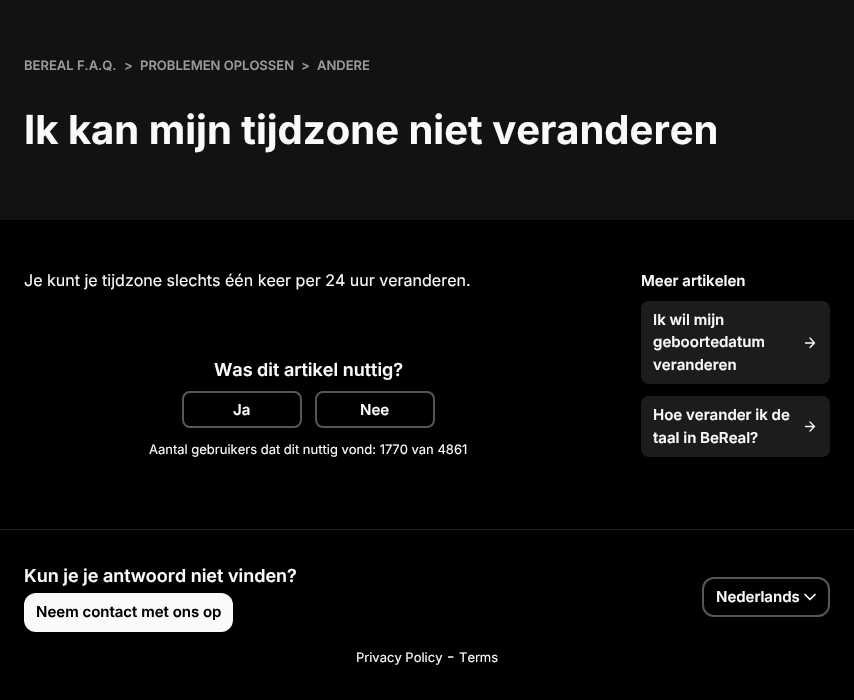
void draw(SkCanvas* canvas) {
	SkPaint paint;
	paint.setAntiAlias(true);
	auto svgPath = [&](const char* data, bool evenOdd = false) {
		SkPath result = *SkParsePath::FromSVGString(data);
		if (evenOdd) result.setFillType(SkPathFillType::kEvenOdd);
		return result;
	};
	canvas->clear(0xff000000);
	paint.setColor(0xff121214);
	canvas->drawRect(SkRect::MakeXYWH(0, 0, 854, 220), paint);
	SkFont f1(fontMgr->matchFamilyStyle("Inter", SkFontStyle(600, SkFontStyle::kNormal_Width, SkFontStyle::kUpright_Slant)), 13);
	f1.setSubpixel(true);
	paint.setColor(0xff99999c);
	canvas->drawString("BEREAL F.A.Q.", 24, 70, f1, paint);
	canvas->drawString(">", 124, 70, f1, paint);
	canvas->drawString("PROBLEMEN OPLOSSEN", 140, 70, f1, paint);
	canvas->drawString(">", 301, 70, f1, paint);
	canvas->drawString("ANDERE", 317, 70, f1, paint);
	SkFont f2(fontMgr->matchFamilyStyle("Inter", SkFontStyle::Bold()), 40);
	f2.setSubpixel(true);
	paint.setColor(0xfffafafa);
	canvas->drawString("Ik kan mijn tijdzone niet veranderen", 24, 144, f2, paint);
	SkFont f3(fontMgr->matchFamilyStyle("Inter", SkFontStyle::Normal()), 16);
	f3.setSubpixel(true);
	canvas->drawString("Je kunt je tijdzone slechts één keer per 24 uur veranderen.", 24, 286, f3, paint);
	SkFont f4(fontMgr->matchFamilyStyle("Inter", SkFontStyle(600, SkFontStyle::kNormal_Width, SkFontStyle::kUpright_Slant)), 18);
	f4.setSubpixel(true);
	canvas->drawString("Was dit artikel nuttig?", 214, 376, f4, paint);
	paint.setStroke(true);
	paint.setStrokeWidth(2);
	paint.setColor(0xff565658);
	canvas->drawRoundRect(SkRect::MakeXYWH(183, 392, 118, 35), 7, 7, paint);
	SkFont f5(fontMgr->matchFamilyStyle("Inter", SkFontStyle(600, SkFontStyle::kNormal_Width, SkFontStyle::kUpright_Slant)), 15);
	f5.setSubpixel(true);
	paint.setStroke(false);
	paint.setColor(0xfffafafa);
	canvas->drawString("Ja", 233, 415, f5, paint);
	paint.setStroke(true);
	paint.setColor(0xff565658);
	canvas->drawRoundRect(SkRect::MakeXYWH(316, 392, 118, 35), 7, 7, paint);
	paint.setStroke(false);
	paint.setColor(0xfffafafa);
	canvas->drawString("Nee", 360, 415, f5, paint);
	SkFont f6(fontMgr->matchFamilyStyle("Inter", SkFontStyle::Normal()), 13);
	f6.setSubpixel(true);
	canvas->drawString("Aantal gebruikers dat dit nuttig vond: 1770 van 4861", 149, 454, f6, paint);
	canvas->drawString("Meer artikelen", 641, 286, f5, paint);
	paint.setColor(0xff1c1c1e);
	canvas->drawRoundRect(SkRect::MakeXYWH(641, 301, 189, 83), 8, 8, paint);
	paint.setColor(0xfffafafa);
	canvas->drawString("Ik wil mijn", 653, 325, f5, paint);
	canvas->drawString("geboortedatum", 653, 347, f5, paint);
	canvas->drawString("veranderen", 653, 370, f5, paint);
	paint.setStroke(true);
	paint.setStrokeWidth(1.3);
	paint.setStrokeCap(SkPaint::kRound_Cap);
	paint.setStrokeJoin(SkPaint::kRound_Join);
	canvas->drawPath(svgPath("M805.5 343H814M810 338L814.5 343L810 347.5"), paint);
	paint.setStroke(false);
	paint.setColor(0xff1c1c1e);
	canvas->drawRoundRect(SkRect::MakeXYWH(641, 396, 189, 61), 8, 8, paint);
	paint.setColor(0xfffafafa);
	canvas->drawString("Hoe verander ik de", 653, 420, f5, paint);
	canvas->drawString("taal in BeReal?", 653, 443, f5, paint);
	paint.setStroke(true);
	canvas->drawPath(svgPath("M805.5 426.5H814M810 422L814.5 426.5L810 431"), paint);
	paint.setStroke(false);
	paint.setColor(0xff222224);
	canvas->drawRect(SkRect::MakeXYWH(0, 529, 854, 1), paint);
	paint.setColor(0xfffafafa);
	canvas->drawString("Kun je je antwoord niet vinden?", 24, 582, f4, paint);
	canvas->drawRoundRect(SkRect::MakeXYWH(24, 593, 209, 39), 12, 12, paint);
	paint.setColor(0xff000000);
	canvas->drawString("Neem contact met ons op", 36, 617, f5, paint);
	paint.setStroke(true);
	paint.setStrokeWidth(2);
	paint.setStrokeCap(SkPaint::kButt_Cap);
	paint.setStrokeJoin(SkPaint::kMiter_Join);
	paint.setColor(0xff565658);
	canvas->drawRoundRect(SkRect::MakeXYWH(703, 578, 126, 38), 11, 11, paint);
	paint.setStroke(false);
	paint.setColor(0xfffafafa);
	canvas->drawString("Nederlands", 716, 602, f5, paint);
	paint.setStroke(true);
	paint.setStrokeWidth(1.7);
	paint.setStrokeCap(SkPaint::kRound_Cap);
	paint.setStrokeJoin(SkPaint::kRound_Join);
	canvas->drawPath(svgPath("M805 594.5L810 599.5L815 594.5"), paint);
	paint.setStroke(false);
	canvas->drawString("Privacy Policy", 356, 662, f6, paint);
	canvas->drawString("-", 447, 662, f3, paint);
	canvas->drawString("Terms", 459, 662, f6, paint);
}
